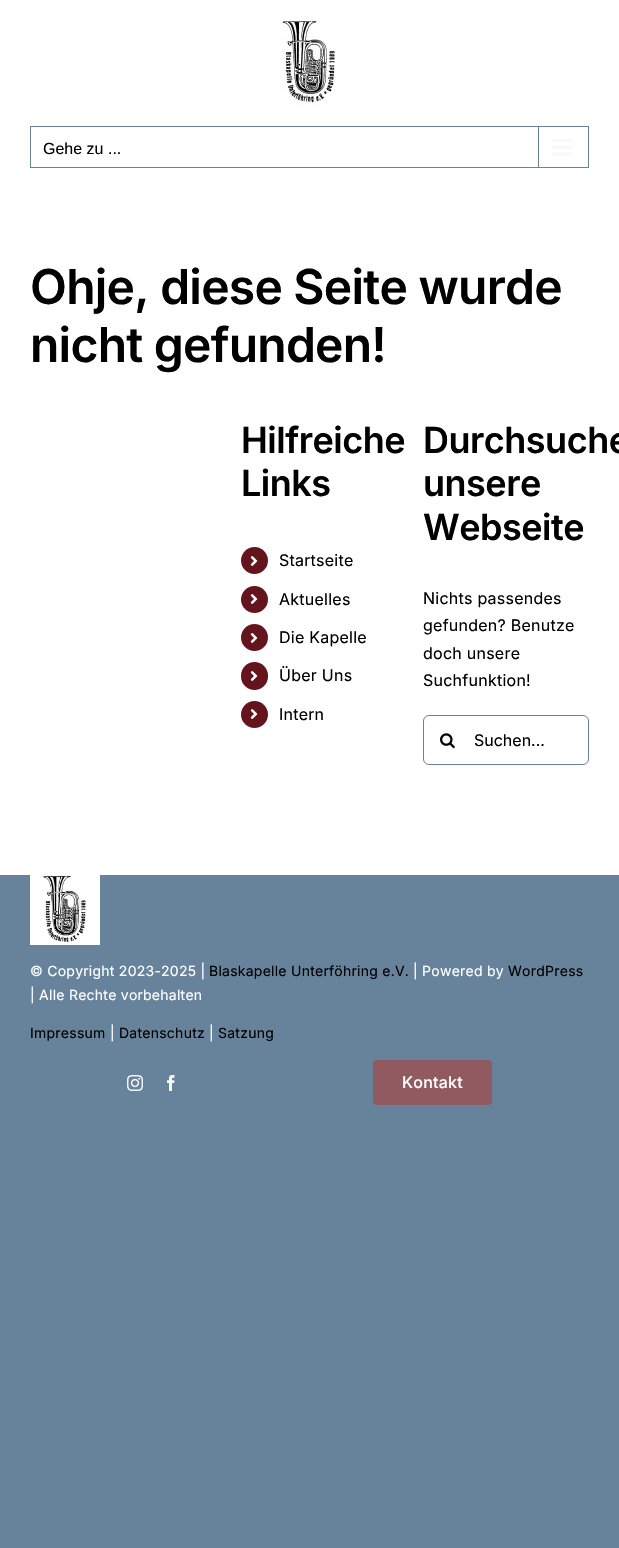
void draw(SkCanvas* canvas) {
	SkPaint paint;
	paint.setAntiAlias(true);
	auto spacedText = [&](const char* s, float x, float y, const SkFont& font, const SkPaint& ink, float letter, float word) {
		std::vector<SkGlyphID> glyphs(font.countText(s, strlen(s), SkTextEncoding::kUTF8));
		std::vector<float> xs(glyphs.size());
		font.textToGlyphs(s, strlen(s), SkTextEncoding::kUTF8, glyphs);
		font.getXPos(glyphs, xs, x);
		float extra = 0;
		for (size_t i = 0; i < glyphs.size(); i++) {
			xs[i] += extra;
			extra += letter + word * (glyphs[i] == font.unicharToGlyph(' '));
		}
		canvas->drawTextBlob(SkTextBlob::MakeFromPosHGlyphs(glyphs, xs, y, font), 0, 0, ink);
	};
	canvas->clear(0xff67829b);
	paint.setColor(0xffffffff);
	canvas->drawRect(SkRect::MakeXYWH(0, 0, 619, 875), paint);
	canvas->drawImageRect(SkImages::DeferredFromEncodedData(SkData::MakeFromFileName("img1.png")), SkRect::MakeXYWH(281, 20, 56, 86), SkSamplingOptions());
	paint.setStroke(true);
	paint.setStrokeWidth(1);
	paint.setColor(0xff67829b);
	canvas->drawRect(SkRect::MakeXYWH(30.5, 126.5, 558, 41), paint);
	SkFont f1(fontMgr->matchFamilyStyle("Liberation Sans", SkFontStyle::Normal()), 16);
	f1.setSubpixel(true);
	paint.setStroke(false);
	paint.setColor(0xff000000);
	canvas->drawString("Gehe zu ...", 43, 154, f1, paint);
	paint.setColor(0xff67829b);
	canvas->drawRect(SkRect::MakeXYWH(538, 127, 1, 40), paint);
	canvas->drawImageRect(SkImages::DeferredFromEncodedData(SkData::MakeFromFileName("img2.png")), SkRect::MakeXYWH(552, 139, 20, 17), SkSamplingOptions());
	SkFont f2(fontMgr->matchFamilyStyle("Inter", SkFontStyle(600, SkFontStyle::kNormal_Width, SkFontStyle::kUpright_Slant)), 48);
	f2.setSubpixel(true);
	paint.setColor(0xff000000);
	spacedText("Ohje, diese Seite wurde", 30, 304, f2, paint, -0.75, 0);
	spacedText("nicht gefunden!", 30, 362, f2, paint, -0.75, 0);
	SkFont f3(fontMgr->matchFamilyStyle("Inter", SkFontStyle(600, SkFontStyle::kNormal_Width, SkFontStyle::kUpright_Slant)), 36);
	f3.setSubpixel(true);
	spacedText("Hilfreiche", 241, 453, f3, paint, -0.5, 0);
	spacedText("Links", 241, 496, f3, paint, -0.5, 0);
	paint.setColor(0xff63141d);
	canvas->drawCircle(254.5, 560.5, 13.5, paint);
	canvas->drawImageRect(SkImages::DeferredFromEncodedData(SkData::MakeFromFileName("img3.png")), SkRect::MakeXYWH(250, 556, 8, 10), SkSamplingOptions());
	SkFont f4(fontMgr->matchFamilyStyle("Inter", SkFontStyle::Normal()), 16);
	f4.setSubpixel(true);
	paint.setColor(0xff000000);
	spacedText("Startseite", 279, 566, f4, paint, 0.25, 0);
	paint.setColor(0xff63141d);
	canvas->drawCircle(254.5, 599.5, 13.5, paint);
	canvas->drawImageRect(SkImages::DeferredFromEncodedData(SkData::MakeFromFileName("img3.png")), SkRect::MakeXYWH(250, 594, 8, 10), SkSamplingOptions());
	paint.setColor(0xff000000);
	spacedText("Aktuelles", 279, 605, f4, paint, 0.25, 0);
	paint.setColor(0xff63141d);
	canvas->drawCircle(254.5, 637.5, 13.5, paint);
	canvas->drawImageRect(SkImages::DeferredFromEncodedData(SkData::MakeFromFileName("img3.png")), SkRect::MakeXYWH(250, 633, 8, 10), SkSamplingOptions());
	paint.setColor(0xff000000);
	spacedText("Die Kapelle", 279, 643, f4, paint, 0.25, 0);
	paint.setColor(0xff63141d);
	canvas->drawRoundRect(SkRect::MakeXYWH(241, 662, 27, 28), 13.5, 13.5, paint);
	canvas->drawImageRect(SkImages::DeferredFromEncodedData(SkData::MakeFromFileName("img3.png")), SkRect::MakeXYWH(250, 671, 8, 10), SkSamplingOptions());
	paint.setColor(0xff000000);
	spacedText("Über Uns", 279, 681, f4, paint, 0.25, 0);
	paint.setColor(0xff63141d);
	canvas->drawCircle(254.5, 714.5, 13.5, paint);
	canvas->drawImageRect(SkImages::DeferredFromEncodedData(SkData::MakeFromFileName("img3.png")), SkRect::MakeXYWH(250, 709, 8, 10), SkSamplingOptions());
	paint.setColor(0xff000000);
	spacedText("Intern", 279, 720, f4, paint, 0.25, 0);
	spacedText("Durchsuche", 423, 453, f3, paint, -0.5, 0);
	spacedText("unsere", 423, 496, f3, paint, -0.5, 0);
	spacedText("Webseite", 423, 540, f3, paint, -0.5, 0);
	spacedText("Nichts passendes", 423, 604, f4, paint, 0.25, 0);
	spacedText("gefunden? Benutze", 423, 631, f4, paint, 0.25, 0);
	spacedText("doch unsere", 423, 659, f4, paint, 0.25, 0);
	spacedText("Suchfunktion!", 423, 686, f4, paint, 0.25, 0);
	paint.setStroke(true);
	paint.setColor(0xff67829b);
	canvas->drawRoundRect(SkRect::MakeXYWH(423.5, 715.5, 165, 49), 5.5, 5.5, paint);
	canvas->drawImageRect(SkImages::DeferredFromEncodedData(SkData::MakeFromFileName("img4.png")), SkRect::MakeXYWH(440, 733, 15, 16), SkSamplingOptions());
	paint.setStroke(false);
	paint.setColor(0xff000000);
	canvas->drawString("Suchen...", 474, 746, f4, paint);
	canvas->drawImageRect(SkImages::DeferredFromEncodedData(SkData::MakeFromFileName("img5.png")), SkRect::MakeXYWH(30, 875, 70, 70), SkSamplingOptions());
	SkFont f5(fontMgr->matchFamilyStyle("Inter", SkFontStyle::Normal()), 14);
	f5.setSubpixel(true);
	paint.setColor(0xffffffff);
	spacedText("© Copyright 2023-2025 |", 30, 976, f5, paint, 0.25, 0);
	paint.setColor(0xff000000);
	spacedText("Blaskapelle Unterföhring e.V.", 209, 976, f5, paint, 0.25, 0);
	paint.setColor(0xffffffff);
	spacedText("| Powered by", 413, 976, f5, paint, 0.25, 0);
	paint.setColor(0xff000000);
	spacedText("WordPress", 508, 976, f5, paint, 0.25, 0);
	paint.setColor(0xffffffff);
	spacedText("| Alle Rechte vorbehalten", 30, 1000, f5, paint, 0.25, 0);
	paint.setColor(0xff000000);
	spacedText("Impressum", 30, 1038, f5, paint, 0.25, 0);
	paint.setColor(0xffffffff);
	spacedText("|", 110, 1038, f5, paint, 0.25, 0);
	paint.setColor(0xff000000);
	spacedText("Datenschutz", 119, 1038, f5, paint, 0.25, 0);
	paint.setColor(0xffffffff);
	spacedText("|", 209, 1038, f5, paint, 0.25, 0);
	paint.setColor(0xff000000);
	spacedText("Satzung", 218, 1038, f5, paint, 0.25, 0);
	canvas->drawImageRect(SkImages::DeferredFromEncodedData(SkData::MakeFromFileName("img6.png")), SkRect::MakeXYWH(127, 1075, 16, 16), SkSamplingOptions());
	canvas->drawImageRect(SkImages::DeferredFromEncodedData(SkData::MakeFromFileName("img7.png")), SkRect::MakeXYWH(167, 1075, 8, 16), SkSamplingOptions());
	paint.setColor(0xff915a60);
	canvas->drawRoundRect(SkRect::MakeXYWH(373, 1060, 119, 45), 4, 4, paint);
	SkFont f6(fontMgr->matchFamilyStyle("Inter", SkFontStyle(500, SkFontStyle::kNormal_Width, SkFontStyle::kUpright_Slant)), 16);
	f6.setSubpixel(true);
	paint.setColor(0xffffffff);
	spacedText("Kontakt", 402, 1088, f6, paint, 0.25, 0);
}
